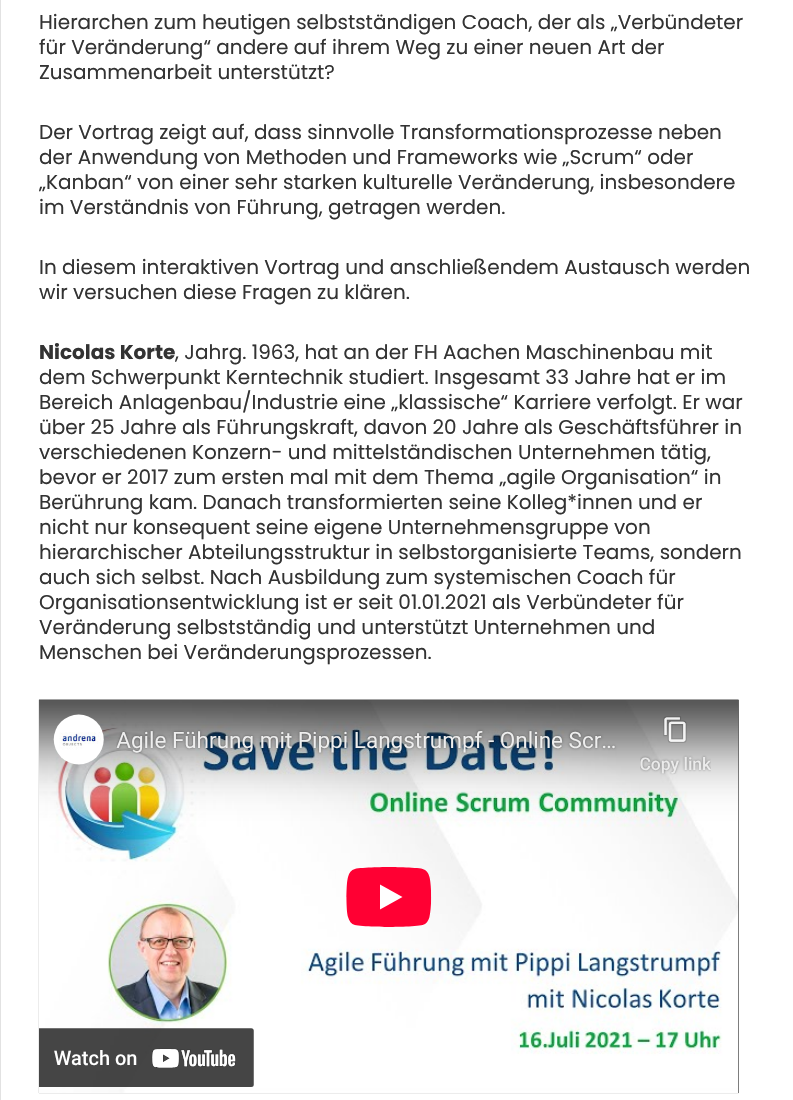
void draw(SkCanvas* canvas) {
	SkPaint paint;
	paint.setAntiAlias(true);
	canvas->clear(0xffffffff);
	paint.setColor(0xffe2e2e2);
	canvas->drawRect(SkRect::MakeXYWH(0, 0, 1, 1100), paint);
	SkFont f1(fontMgr->matchFamilyStyle("Poppins", SkFontStyle::Normal()), 20);
	f1.setSubpixel(true);
	paint.setColor(0xff333333);
	canvas->drawString("Hierarchen zum heutigen selbstständigen Coach, der als „Verbündeter", 39, 29, f1, paint);
	canvas->drawString("für Veränderung“ andere auf ihrem Weg zu einer neuen Art der", 39, 54, f1, paint);
	canvas->drawString("Zusammenarbeit unterstützt?", 39, 79, f1, paint);
	canvas->drawString("Der Vortrag zeigt auf, dass sinnvolle Transformationsprozesse neben", 39, 139, f1, paint);
	canvas->drawString("der Anwendung von Methoden und Frameworks wie „Scrum“ oder", 39, 164, f1, paint);
	canvas->drawString("„Kanban“ von einer sehr starken kulturelle Veränderung, insbesondere", 39, 189, f1, paint);
	canvas->drawString("im Verständnis von Führung, getragen werden.", 39, 214, f1, paint);
	canvas->drawString("In diesem interaktiven Vortrag und anschließendem Austausch werden", 39, 274, f1, paint);
	canvas->drawString("wir versuchen diese Fragen zu klären.", 39, 299, f1, paint);
	SkFont f2(fontMgr->matchFamilyStyle("Poppins", SkFontStyle::Bold()), 20);
	f2.setSubpixel(true);
	canvas->drawString("Nicolas Korte", 39, 359, f2, paint);
	canvas->drawString(", Jahrg. 1963, hat an der FH Aachen Maschinenbau mit", 175, 359, f1, paint);
	canvas->drawString("dem Schwerpunkt Kerntechnik studiert. Insgesamt 33 Jahre hat er im", 39, 384, f1, paint);
	canvas->drawString("Bereich Anlagenbau/Industrie eine „klassische“ Karriere verfolgt. Er war", 39, 409, f1, paint);
	canvas->drawString("über 25 Jahre als Führungskraft, davon 20 Jahre als Geschäftsführer in", 39, 434, f1, paint);
	canvas->drawString("verschiedenen Konzern- und mittelständischen Unternehmen tätig,", 39, 459, f1, paint);
	canvas->drawString("bevor er 2017 zum ersten mal mit dem Thema „agile Organisation“ in", 39, 484, f1, paint);
	canvas->drawString("Berührung kam. Danach transformierten seine Kolleg*innen und er", 39, 509, f1, paint);
	canvas->drawString("nicht nur konsequent seine eigene Unternehmensgruppe von", 39, 534, f1, paint);
	canvas->drawString("hierarchischer Abteilungsstruktur in selbstorganisierte Teams, sondern", 39, 559, f1, paint);
	canvas->drawString("auch sich selbst. Nach Ausbildung zum systemischen Coach für", 39, 584, f1, paint);
	canvas->drawString("Organisationsentwicklung ist er seit 01.01.2021 als Verbündeter für", 39, 609, f1, paint);
	canvas->drawString("Veränderung selbstständig und unterstützt Unternehmen und", 39, 634, f1, paint);
	canvas->drawString("Menschen bei Veränderungsprozessen.", 39, 659, f1, paint);
	canvas->drawImageRect(SkImages::DeferredFromEncodedData(SkData::MakeFromFileName("img1.png")), SkRect::MakeXYWH(38, 699, 701, 395), SkSamplingOptions());
}
